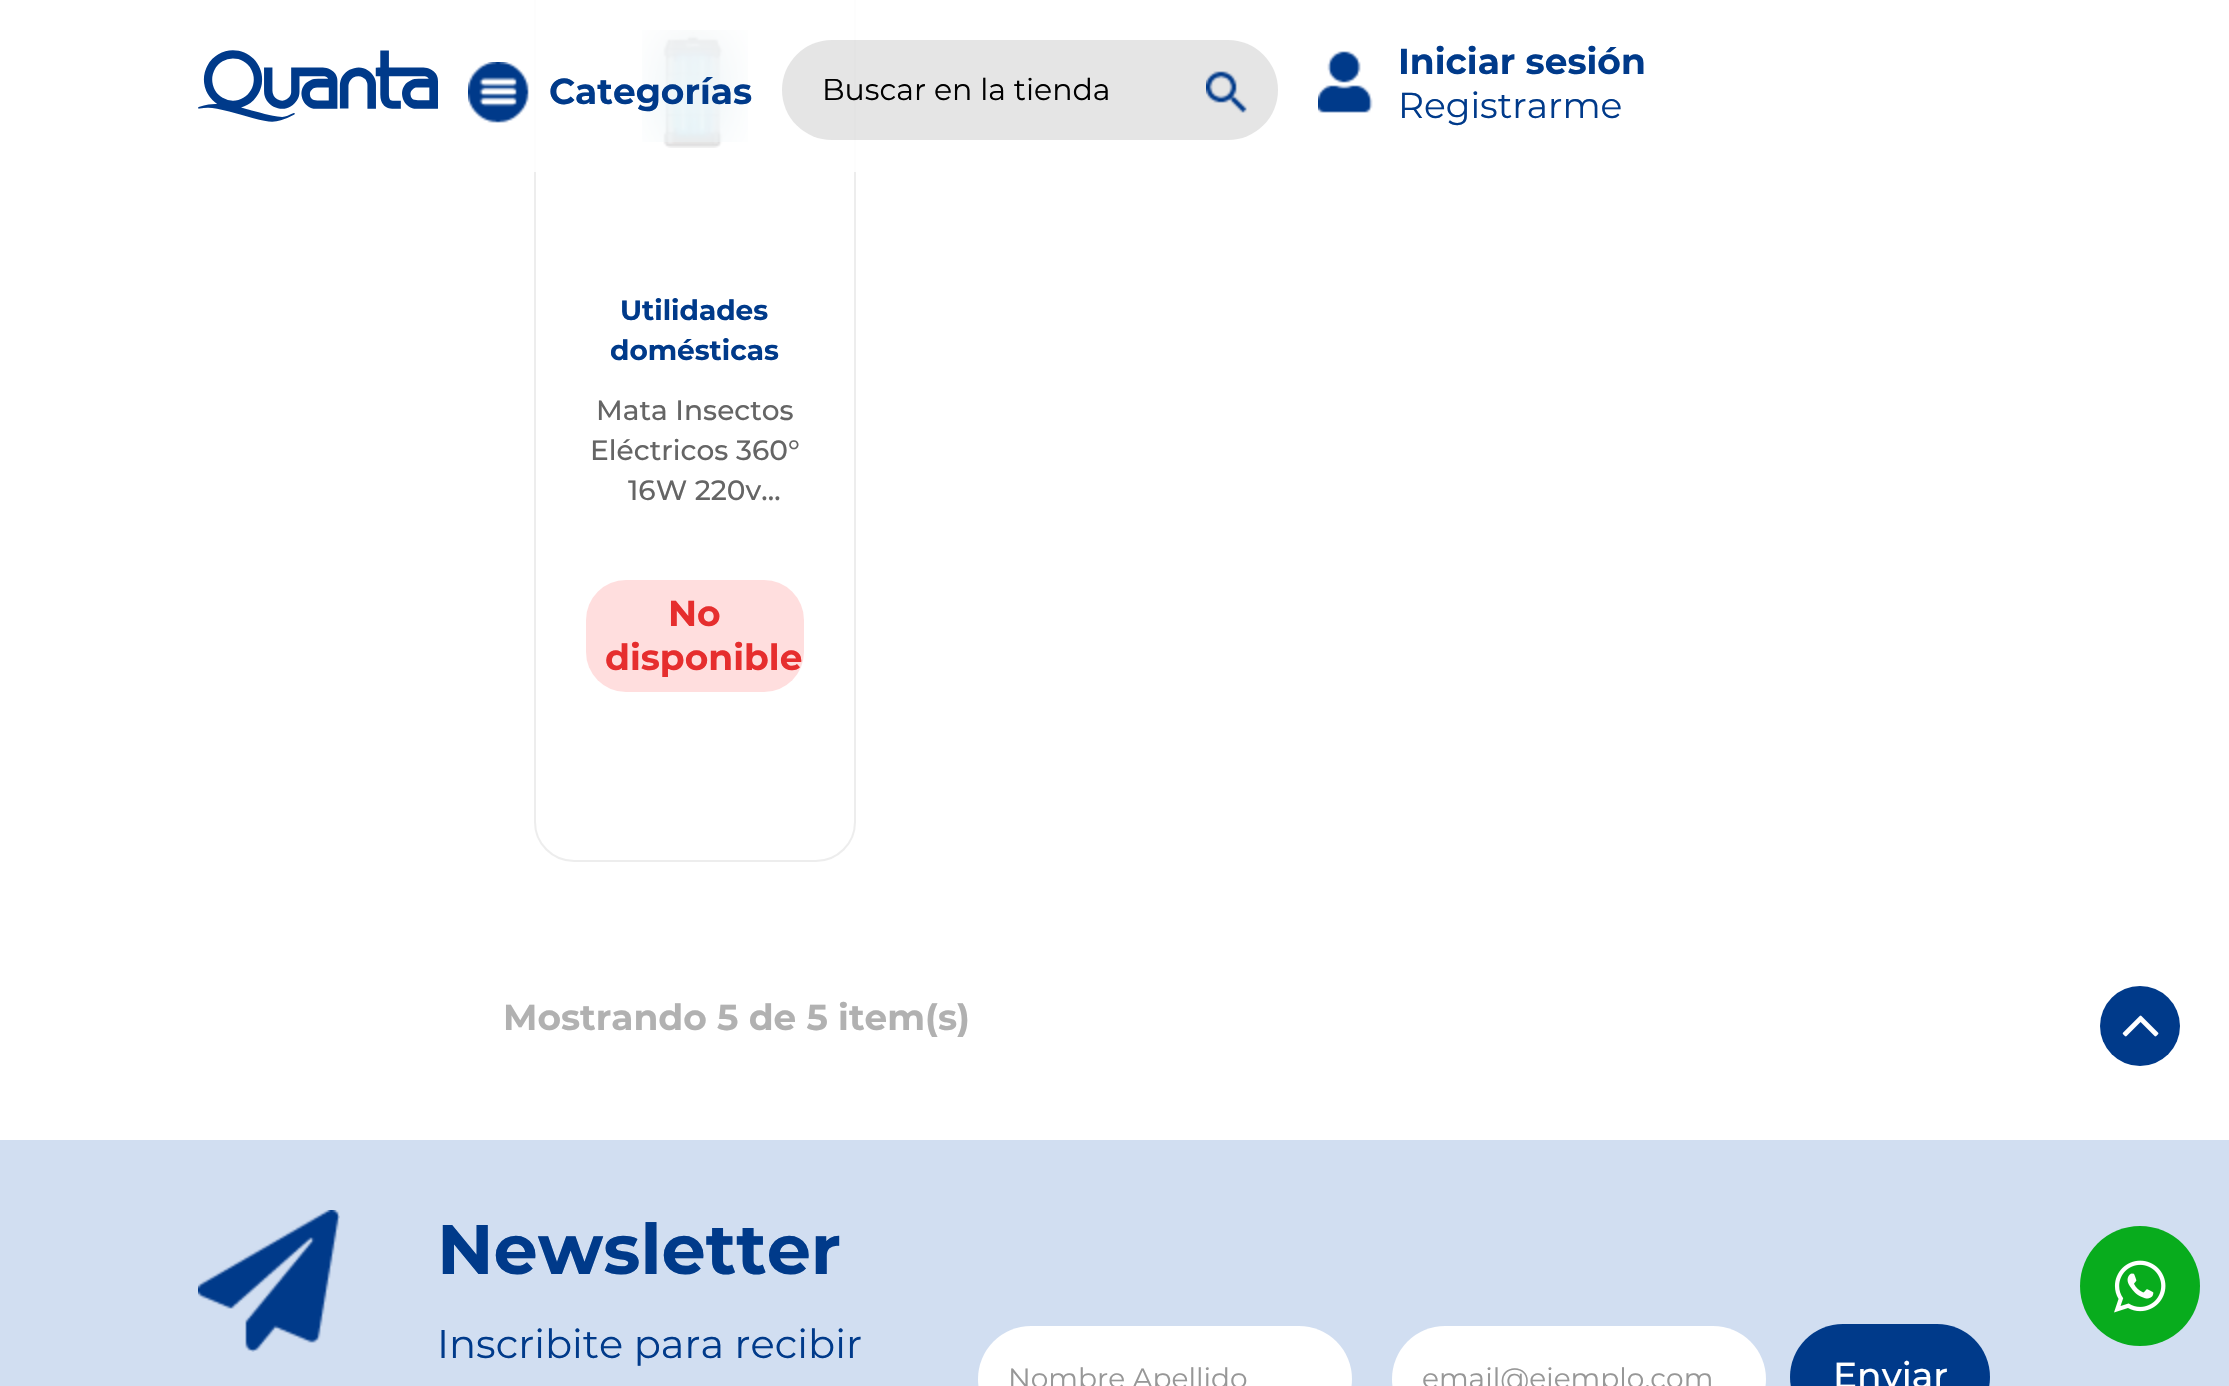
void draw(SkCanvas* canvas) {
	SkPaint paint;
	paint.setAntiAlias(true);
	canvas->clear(0xffffffff);
	paint.setStroke(true);
	paint.setStrokeWidth(2);
	paint.setColor(0xffededed);
	canvas->drawRoundRect(SkRect::MakeXYWH(535, -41, 320, 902), 39, 39, paint);
	canvas->drawImageRect(SkImages::DeferredFromEncodedData(SkData::MakeFromFileName("img5.png")), SkRect::MakeXYWH(642, 30, 106, 118), SkSamplingOptions());
	paint.setStroke(false);
	paint.setColor(0xd9ffffff);
	canvas->drawRect(SkRect::MakeXYWH(534, 0, 322, 172), paint);
	canvas->drawImageRect(SkImages::DeferredFromEncodedData(SkData::MakeFromFileName("img1.png")), SkRect::MakeXYWH(198, 50, 240, 72), SkSamplingOptions());
	canvas->drawImageRect(SkImages::DeferredFromEncodedData(SkData::MakeFromFileName("img2.png")), SkRect::MakeXYWH(468, 62, 61, 61), SkSamplingOptions());
	SkFont f1(fontMgr->matchFamilyStyle("Montserrat", SkFontStyle::Bold()), 36);
	f1.setSubpixel(true);
	paint.setColor(0xff003a8a);
	canvas->drawString("Categorías", 549, 104, f1, paint);
	paint.setColor(0x1a000000);
	canvas->drawRoundRect(SkRect::MakeXYWH(782, 40, 496, 100), 50, 50, paint);
	SkFont f2(fontMgr->matchFamilyStyle("Montserrat", SkFontStyle::Normal()), 30);
	f2.setSubpixel(true);
	paint.setColor(0xff000000);
	canvas->drawString("Buscar en la tienda", 822, 100, f2, paint);
	canvas->drawImageRect(SkImages::DeferredFromEncodedData(SkData::MakeFromFileName("img3.png")), SkRect::MakeXYWH(1206, 71, 41, 42), SkSamplingOptions());
	canvas->drawImageRect(SkImages::DeferredFromEncodedData(SkData::MakeFromFileName("img4.png")), SkRect::MakeXYWH(1318, 51, 55, 62), SkSamplingOptions());
	paint.setColor(0xff003a8a);
	canvas->drawString("Iniciar sesión", 1398, 74, f1, paint);
	SkFont f3(fontMgr->matchFamilyStyle("Montserrat", SkFontStyle::Normal()), 36);
	f3.setSubpixel(true);
	canvas->drawString("Registrarme", 1398, 118, f3, paint);
	SkFont f4(fontMgr->matchFamilyStyle("Montserrat", SkFontStyle::Bold()), 28);
	f4.setSubpixel(true);
	canvas->drawString("Utilidades", 620, 320, f4, paint);
	canvas->drawString("domésticas", 610, 360, f4, paint);
	SkFont f5(fontMgr->matchFamilyStyle("Montserrat", SkFontStyle(500, SkFontStyle::kNormal_Width, SkFontStyle::kUpright_Slant)), 28);
	f5.setSubpixel(true);
	paint.setColor(0xff656565);
	canvas->drawString("Mata Insectos", 596, 420, f5, paint);
	canvas->drawString("Eléctricos 360°", 590, 460, f5, paint);
	canvas->drawString("16W 220v…", 628, 500, f5, paint);
	paint.setColor(0xffffdede);
	canvas->drawRoundRect(SkRect::MakeXYWH(586, 580, 218, 112), 40, 40, paint);
	paint.setColor(0xffe62e2e);
	canvas->drawString("No", 668, 626, f1, paint);
	canvas->drawString("disponible", 605, 670, f1, paint);
	paint.setColor(0xffb1b1b1);
	canvas->drawString("Mostrando 5 de 5 item(s)", 503, 1030, f1, paint);
	paint.setColor(0xff003a8a);
	canvas->drawCircle(2140, 1026, 40, paint);
	canvas->drawImageRect(SkImages::DeferredFromEncodedData(SkData::MakeFromFileName("img6.png")), SkRect::MakeXYWH(2122, 1015, 37, 22), SkSamplingOptions());
	paint.setColor(0xffd1def1);
	canvas->drawRect(SkRect::MakeXYWH(0, 1140, 2229, 246), paint);
	canvas->drawImageRect(SkImages::DeferredFromEncodedData(SkData::MakeFromFileName("img7.png")), SkRect::MakeXYWH(198, 1210, 142, 142), SkSamplingOptions());
	SkFont f6(fontMgr->matchFamilyStyle("Montserrat", SkFontStyle::Bold()), 70);
	f6.setSubpixel(true);
	paint.setColor(0xff003a8a);
	canvas->drawString("Newsletter", 437, 1274, f6, paint);
	SkFont f7(fontMgr->matchFamilyStyle("Montserrat", SkFontStyle::Normal()), 40);
	f7.setSubpixel(true);
	canvas->drawString("Inscribite para recibir", 437, 1358, f7, paint);
	paint.setColor(0xffffffff);
	canvas->drawRoundRect(SkRect::MakeXYWH(978, 1326, 374, 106), 53, 53, paint);
	SkFont f8(fontMgr->matchFamilyStyle("Montserrat", SkFontStyle::Normal()), 28);
	f8.setSubpixel(true);
	paint.setColor(0xff979797);
	canvas->drawString("Nombre Apellido", 1008, 1388, f8, paint);
	paint.setColor(0xffffffff);
	canvas->drawRoundRect(SkRect::MakeXYWH(1392, 1326, 374, 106), 53, 53, paint);
	paint.setColor(0xff979797);
	canvas->drawString("email@ejemplo.com", 1422, 1388, f8, paint);
	paint.setColor(0xff003a8a);
	canvas->drawRoundRect(SkRect::MakeXYWH(1790, 1324, 200, 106), 53, 53, paint);
	SkFont f9(fontMgr->matchFamilyStyle("Montserrat", SkFontStyle(500, SkFontStyle::kNormal_Width, SkFontStyle::kUpright_Slant)), 36);
	f9.setSubpixel(true);
	paint.setColor(0xffffffff);
	canvas->drawString("Enviar", 1833, 1388, f9, paint);
	paint.setColor(0xff08ac1d);
	canvas->drawCircle(2140, 1286, 60, paint);
	canvas->drawImageRect(SkImages::DeferredFromEncodedData(SkData::MakeFromFileName("img8.png")), SkRect::MakeXYWH(2114, 1260, 52, 53), SkSamplingOptions());
}
